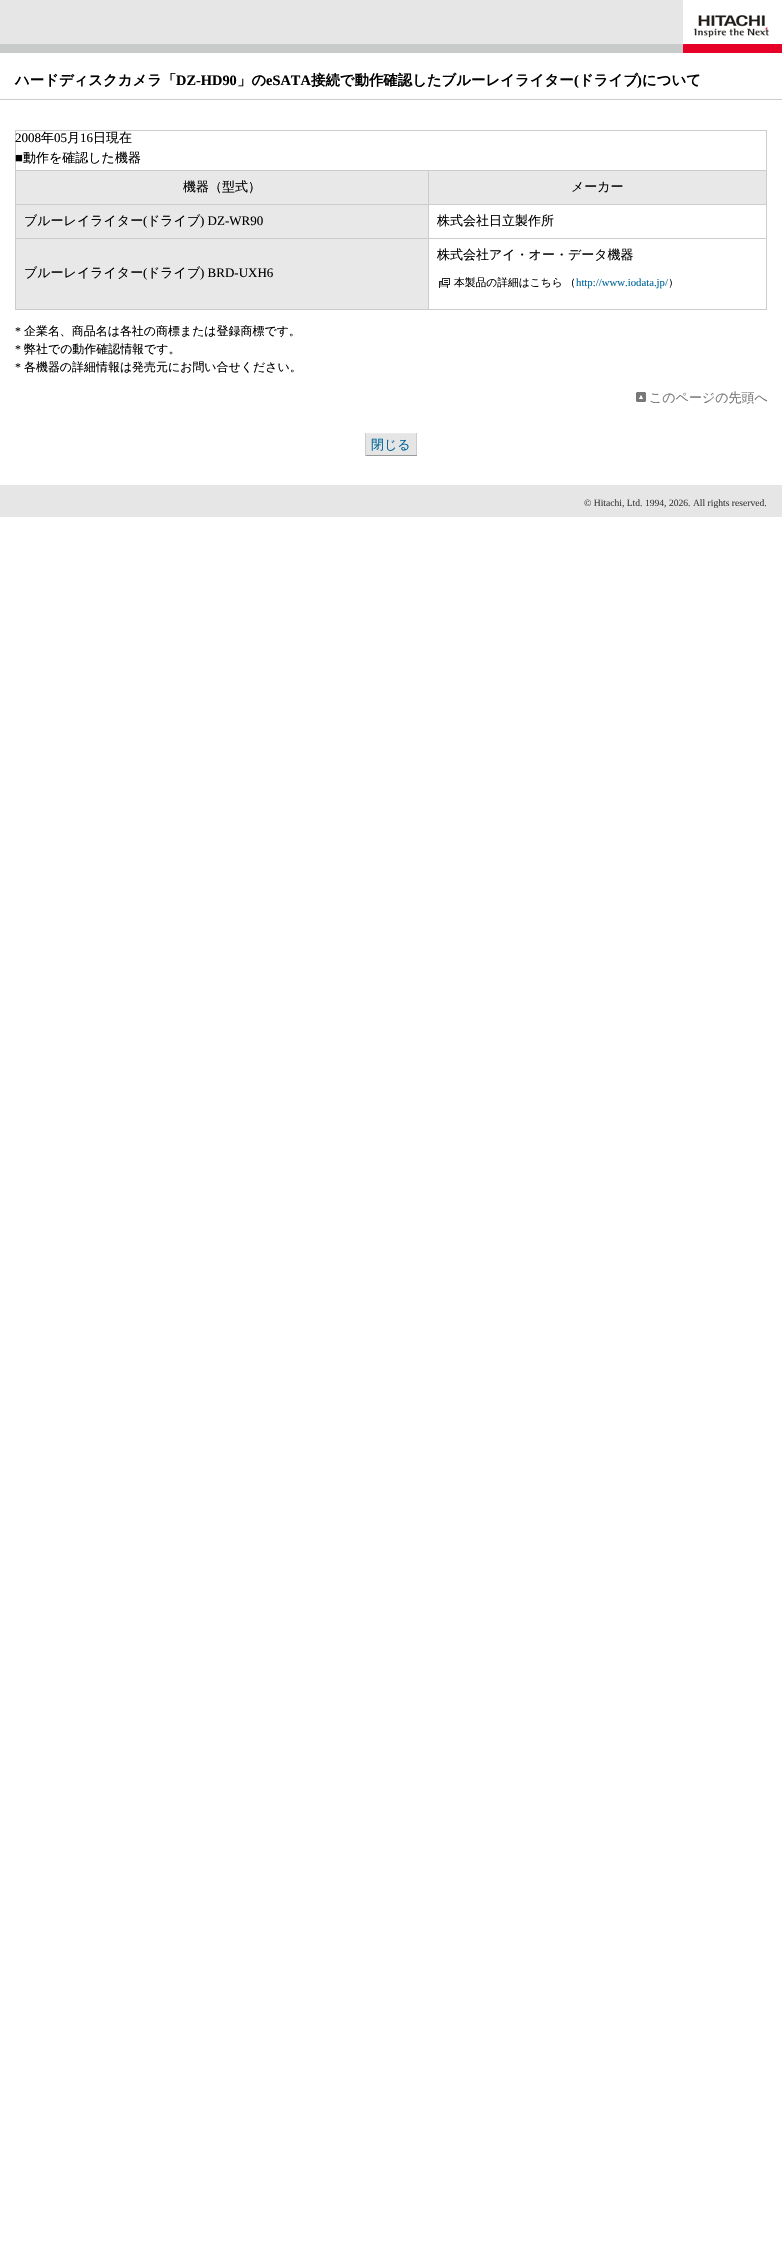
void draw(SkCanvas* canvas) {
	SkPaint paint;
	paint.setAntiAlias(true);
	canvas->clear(0xffffffff);
	paint.setColor(0xffe6e6e6);
	canvas->drawRect(SkRect::MakeXYWH(0, 0, 683, 44), paint);
	paint.setColor(0xffc9caca);
	canvas->drawRect(SkRect::MakeXYWH(0, 44, 683, 9), paint);
	canvas->drawImageRect(SkImages::DeferredFromEncodedData(SkData::MakeFromFileName("img1.png")), SkRect::MakeXYWH(683, 0, 99, 53), SkSamplingOptions());
	paint.setColor(0xffcccccc);
	canvas->drawRect(SkRect::MakeXYWH(0, 99, 782, 1), paint);
	SkFont f1(fontMgr->matchFamilyStyle("WenQuanYi Zen Hei", SkFontStyle::Bold()), 14.4);
	f1.setSubpixel(true);
	paint.setColor(0xff000000);
	canvas->drawString("ハードディスクカメラ「", 15, 85, f1, paint);
	SkFont f2(fontMgr->matchFamilyStyle("Liberation Serif", SkFontStyle::Bold()), 14.4);
	f2.setSubpixel(true);
	canvas->drawString("DZ-HD90", 176, 85, f2, paint);
	canvas->drawString("」の", 237, 85, f1, paint);
	canvas->drawString("eSATA", 266, 85, f2, paint);
	canvas->drawString("接続で動作確認したブルーレイライター", 311, 85, f1, paint);
	canvas->drawString("(", 574, 85, f2, paint);
	canvas->drawString("ドライブ", 579, 85, f1, paint);
	canvas->drawString(")", 637, 85, f2, paint);
	canvas->drawString("について", 642, 85, f1, paint);
	paint.setColor(0xffcccccc);
	canvas->drawRect(SkRect::MakeXYWH(15, 130, 752, 1), paint);
	canvas->drawRect(SkRect::MakeXYWH(766, 130, 1, 180), paint);
	canvas->drawRect(SkRect::MakeXYWH(15, 309, 752, 1), paint);
	canvas->drawRect(SkRect::MakeXYWH(15, 130, 1, 180), paint);
	SkFont f3(fontMgr->matchFamilyStyle("Liberation Serif", SkFontStyle::Normal()), 13);
	f3.setSubpixel(true);
	paint.setColor(0xff000000);
	canvas->drawString("2008", 15, 142, f3, paint);
	SkFont f4(fontMgr->matchFamilyStyle("WenQuanYi Zen Hei", SkFontStyle(500, SkFontStyle::kNormal_Width, SkFontStyle::kUpright_Slant)), 13);
	f4.setSubpixel(true);
	canvas->drawString("年", 41, 142, f4, paint);
	canvas->drawString("05", 54, 142, f3, paint);
	canvas->drawString("月", 67, 142, f4, paint);
	canvas->drawString("16", 80, 142, f3, paint);
	canvas->drawString("日現在", 93, 142, f4, paint);
	canvas->drawString("■", 15, 162, f3, paint);
	canvas->drawString("動作を確認した機器", 23, 162, f4, paint);
	paint.setColor(0xffe8e8e8);
	canvas->drawRect(SkRect::MakeXYWH(16, 171, 412, 33), paint);
	paint.setColor(0xffcccccc);
	canvas->drawRect(SkRect::MakeXYWH(428, 170, 339, 1), paint);
	canvas->drawRect(SkRect::MakeXYWH(428, 204, 339, 1), paint);
	canvas->drawRect(SkRect::MakeXYWH(428, 238, 339, 1), paint);
	canvas->drawRect(SkRect::MakeXYWH(428, 238, 1, 72), paint);
	canvas->drawRect(SkRect::MakeXYWH(15, 238, 414, 1), paint);
	canvas->drawRect(SkRect::MakeXYWH(428, 204, 1, 35), paint);
	canvas->drawRect(SkRect::MakeXYWH(15, 204, 414, 1), paint);
	canvas->drawRect(SkRect::MakeXYWH(428, 170, 1, 35), paint);
	canvas->drawRect(SkRect::MakeXYWH(15, 170, 414, 1), paint);
	paint.setColor(0xff000000);
	canvas->drawString("機器（型式）", 183, 191, f4, paint);
	paint.setColor(0xffe8e8e8);
	canvas->drawRect(SkRect::MakeXYWH(429, 171, 337, 33), paint);
	paint.setColor(0xff000000);
	canvas->drawString("メーカー", 571, 191, f4, paint);
	paint.setColor(0xffe8e8e8);
	canvas->drawRect(SkRect::MakeXYWH(16, 205, 412, 33), paint);
	paint.setColor(0xff000000);
	canvas->drawString("ブルーレイライター", 24, 225, f4, paint);
	canvas->drawString("(", 143, 225, f3, paint);
	canvas->drawString("ドライブ", 147, 225, f4, paint);
	canvas->drawString(") DZ-WR90", 200, 225, f3, paint);
	canvas->drawString("株式会社日立製作所", 437, 225, f4, paint);
	paint.setColor(0xffe8e8e8);
	canvas->drawRect(SkRect::MakeXYWH(16, 239, 412, 70), paint);
	paint.setColor(0xff000000);
	canvas->drawString("ブルーレイライター", 24, 277, f4, paint);
	canvas->drawString("(", 143, 277, f3, paint);
	canvas->drawString("ドライブ", 147, 277, f4, paint);
	canvas->drawString(") BRD-UXH6", 200, 277, f3, paint);
	canvas->drawString("株式会社アイ・オー・データ機器", 437, 259, f4, paint);
	canvas->drawImageRect(SkImages::DeferredFromEncodedData(SkData::MakeFromFileName("img2.png")), SkRect::MakeXYWH(439, 278, 11, 10), SkSamplingOptions());
	SkFont f5(fontMgr->matchFamilyStyle("WenQuanYi Zen Hei", SkFontStyle(500, SkFontStyle::kNormal_Width, SkFontStyle::kUpright_Slant)), 10.75);
	f5.setSubpixel(true);
	canvas->drawString("本製品の詳細はこちら", 454, 286, f5, paint);
	canvas->drawString("（", 565, 286, f5, paint);
	SkFont f6(fontMgr->matchFamilyStyle("Liberation Serif", SkFontStyle::Normal()), 10.75);
	f6.setSubpixel(true);
	paint.setColor(0xff006699);
	canvas->drawString("http://www.iodata.jp/", 576, 286, f6, paint);
	paint.setColor(0xff000000);
	canvas->drawString("）", 668, 286, f5, paint);
	SkFont f7(fontMgr->matchFamilyStyle("Liberation Serif", SkFontStyle::Normal()), 11.95);
	f7.setSubpixel(true);
	canvas->drawString("*", 15, 335, f7, paint);
	SkFont f8(fontMgr->matchFamilyStyle("WenQuanYi Zen Hei", SkFontStyle(500, SkFontStyle::kNormal_Width, SkFontStyle::kUpright_Slant)), 11.95);
	f8.setSubpixel(true);
	canvas->drawString("企業名、商品名は各社の商標または登録商標です。", 24, 335, f8, paint);
	canvas->drawString("*", 15, 353, f7, paint);
	canvas->drawString("弊社での動作確認情報です。", 24, 353, f8, paint);
	canvas->drawString("*", 15, 371, f7, paint);
	canvas->drawString("各機器の詳細情報は発売元にお問い合せください。", 24, 371, f8, paint);
	canvas->drawImageRect(SkImages::DeferredFromEncodedData(SkData::MakeFromFileName("img3.png")), SkRect::MakeXYWH(636, 392, 10, 10), SkSamplingOptions());
	paint.setColor(0xff777777);
	canvas->drawString("このページの先頭へ", 649, 402, f4, paint);
	paint.setColor(0xffe5e5e5);
	canvas->drawRect(SkRect::MakeXYWH(366, 434, 50, 21), paint);
	paint.setColor(0xff006699);
	canvas->drawString("閉じる", 371, 449, f4, paint);
	paint.setColor(0xffeaeaea);
	canvas->drawRect(SkRect::MakeXYWH(365, 433, 52, 1), paint);
	paint.setColor(0xffcccccc);
	canvas->drawRect(SkRect::MakeXYWH(416, 433, 1, 23), paint);
	paint.setColor(0xff999999);
	canvas->drawRect(SkRect::MakeXYWH(365, 455, 52, 1), paint);
	paint.setColor(0xffcccccc);
	canvas->drawRect(SkRect::MakeXYWH(365, 433, 1, 23), paint);
	paint.setColor(0xffe6e6e6);
	canvas->drawRect(SkRect::MakeXYWH(0, 485, 782, 32), paint);
	SkFont f9(fontMgr->matchFamilyStyle("Liberation Serif", SkFontStyle::Normal()), 9.6);
	f9.setSubpixel(true);
	paint.setColor(0xff3e3a39);
	canvas->drawString("© Hitachi, Ltd. 1994, 2026. All rights reserved.", 584, 506, f9, paint);
}
